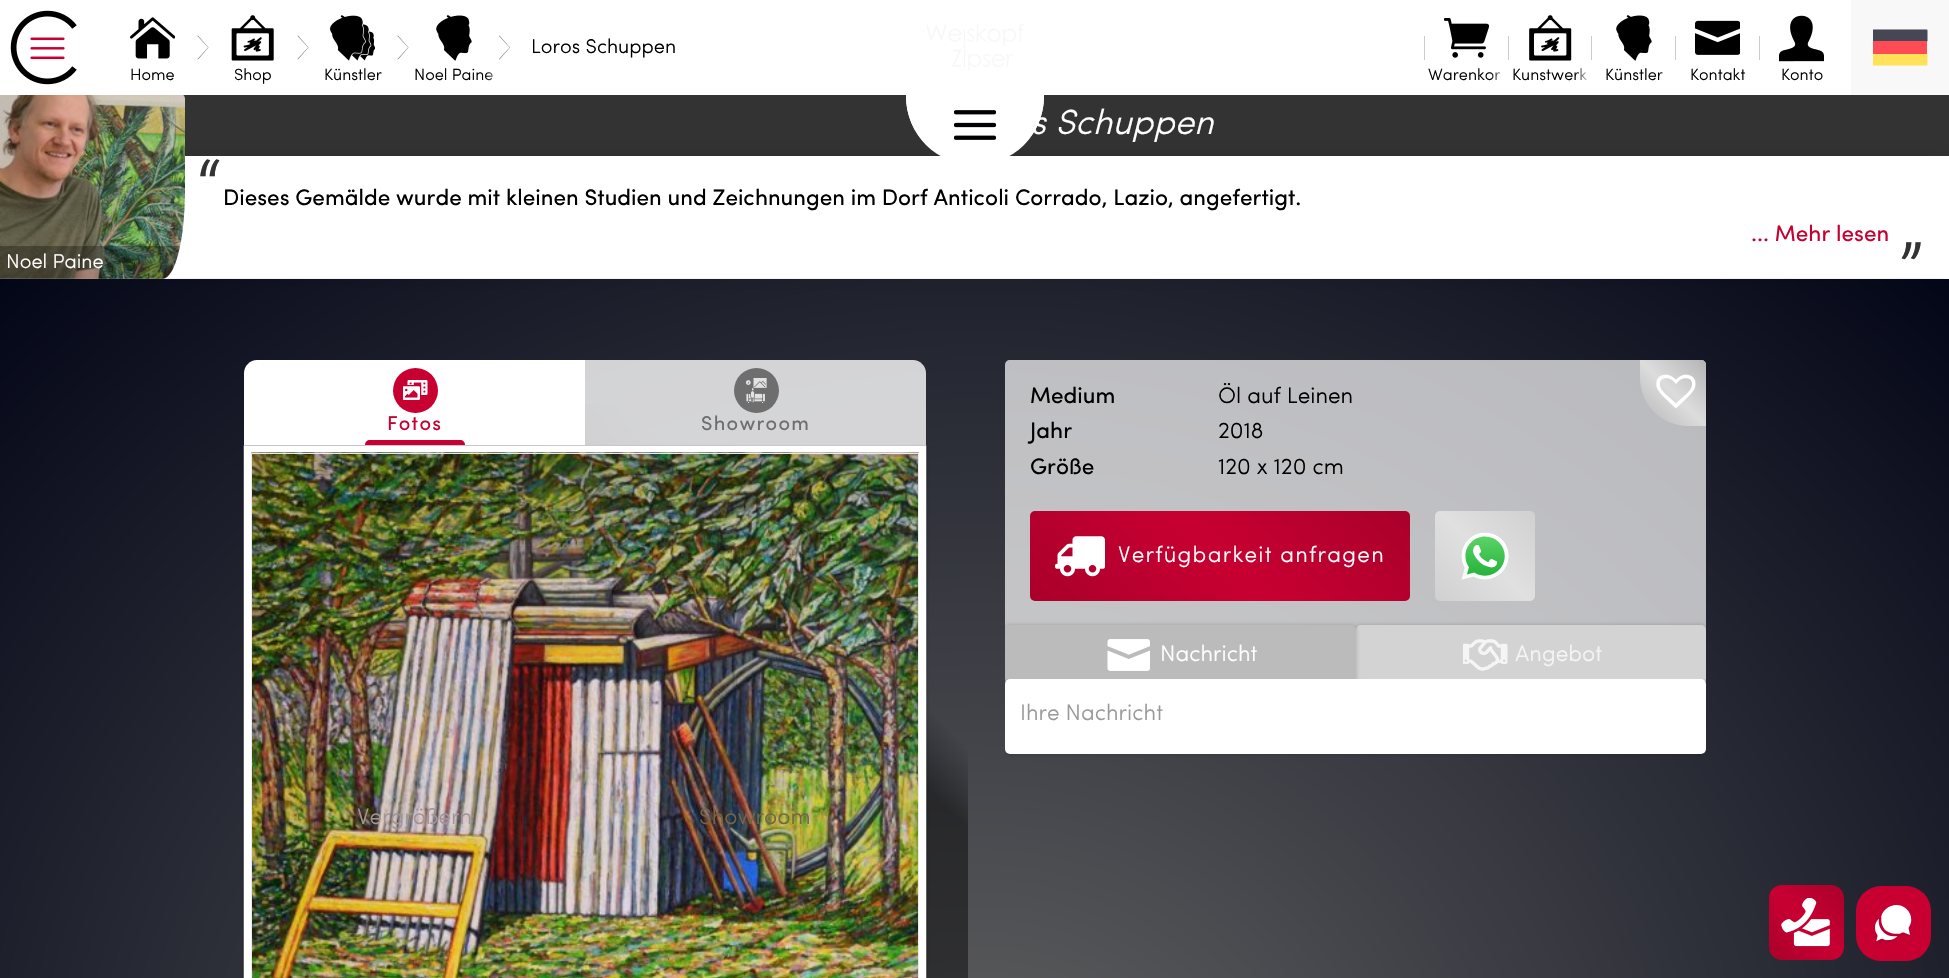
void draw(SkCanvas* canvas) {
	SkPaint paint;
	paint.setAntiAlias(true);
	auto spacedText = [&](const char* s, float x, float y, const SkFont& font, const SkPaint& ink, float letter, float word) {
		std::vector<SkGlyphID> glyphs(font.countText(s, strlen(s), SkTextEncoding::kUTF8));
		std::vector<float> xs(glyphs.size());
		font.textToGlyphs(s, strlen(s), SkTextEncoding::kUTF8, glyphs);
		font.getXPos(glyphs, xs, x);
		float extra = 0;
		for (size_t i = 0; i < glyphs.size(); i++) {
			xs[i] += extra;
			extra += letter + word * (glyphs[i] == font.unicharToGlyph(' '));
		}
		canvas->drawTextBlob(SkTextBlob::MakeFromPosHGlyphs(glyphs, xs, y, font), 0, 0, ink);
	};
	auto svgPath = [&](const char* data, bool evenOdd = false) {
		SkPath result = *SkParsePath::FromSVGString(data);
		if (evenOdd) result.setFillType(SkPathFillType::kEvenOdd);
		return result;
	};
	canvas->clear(0xffffffff);
	paint.setColor(0xff333333);
	canvas->drawRect(SkRect::MakeXYWH(183, 95, 1766, 61), paint);
	SkFont f1(fontMgr->matchFamilyStyle("Sofia", SkFontStyle(300, SkFontStyle::kNormal_Width, SkFontStyle::kItalic_Slant)), 35);
	f1.setSubpixel(true);
	paint.setColor(0xffffffff);
	canvas->drawString("s Schuppen", 1031, 134, f1, paint);
	{
		const SkColor colors[] = {0xff646464, 0xff030617};
		const float stops[] = {0, 1};
		SkMatrix m = SkMatrix::Translate(975, 1166).preScale(1379, 1255);
		paint.setShader(SkGradientShader::MakeRadial({0, 0}, 1, colors, stops, 2, SkTileMode::kClamp, 0, &m));
		paint.setAlpha(255);
	}
	canvas->drawRect(SkRect::MakeXYWH(0, 279, 1949, 699), paint);
	paint.setShader(nullptr);
	paint.setColor(0x1a000000);
	paint.setMaskFilter(SkMaskFilter::MakeBlur(kNormal_SkBlurStyle, 10));
	canvas->drawRect(SkRect::MakeXYWH(0, 156, 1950, 122), paint);
	paint.setMaskFilter(nullptr);
	canvas->drawImageRect(SkImages::DeferredFromEncodedData(SkData::MakeFromFileName("img1.png")), SkRect::MakeXYWH(906, 95, 138, 55), SkSamplingOptions());
	paint.setColor(0xffffffff);
	canvas->drawRect(SkRect::MakeXYWH(165, 156, 1784, 122), paint);
	canvas->drawRoundRect(SkRect::MakeXYWH(906, 28, 138, 137), 68.5, 68.5, paint);
	canvas->drawImageRect(SkImages::DeferredFromEncodedData(SkData::MakeFromFileName("img2.png")), SkRect::MakeXYWH(954, 110, 42, 30), SkSamplingOptions());
	canvas->drawImageRect(SkImages::DeferredFromEncodedData(SkData::MakeFromFileName("img3.png")), SkRect::MakeXYWH(10, 10, 67, 75), SkSamplingOptions());
	paint.setColor(0xff808080);
	canvas->drawPath(svgPath("M510 47.5L499.5 59.5L499 59L509.5 47.5L499 36L499.5 35.5Z"), paint);
	SkFont f2(fontMgr->matchFamilyStyle("Sofia", SkFontStyle(300, SkFontStyle::kNormal_Width, SkFontStyle::kUpright_Slant)), 20);
	f2.setSubpixel(true);
	paint.setColor(0xff000000);
	canvas->drawString("Loros Schuppen", 531, 53, f2, paint);
	canvas->drawImageRect(SkImages::DeferredFromEncodedData(SkData::MakeFromFileName("img4.png")), SkRect::MakeXYWH(130, 17, 45, 42), SkSamplingOptions());
	SkFont f3(fontMgr->matchFamilyStyle("Sofia", SkFontStyle(300, SkFontStyle::kNormal_Width, SkFontStyle::kUpright_Slant)), 16.25);
	f3.setSubpixel(true);
	canvas->drawString("Home", 130, 80, f3, paint);
	paint.setColor(0xff808080);
	canvas->drawPath(svgPath("M208.5 47.5L198 59.5L197.5 59L208 47.5L197.5 36L198 35.5Z"), paint);
	canvas->drawImageRect(SkImages::DeferredFromEncodedData(SkData::MakeFromFileName("img5.png")), SkRect::MakeXYWH(231, 15, 43, 46), SkSamplingOptions());
	paint.setColor(0xff000000);
	canvas->drawString("Shop", 234, 80, f3, paint);
	paint.setColor(0xff808080);
	canvas->drawPath(svgPath("M308.5 47.5L298 59.5L297.5 59L308 47.5L297.5 36L298 35.5Z"), paint);
	canvas->drawImageRect(SkImages::DeferredFromEncodedData(SkData::MakeFromFileName("img6.png")), SkRect::MakeXYWH(330, 15, 45, 46), SkSamplingOptions());
	paint.setColor(0xff000000);
	canvas->drawString("Künstler", 324, 80, f3, paint);
	paint.setColor(0xff808080);
	canvas->drawPath(svgPath("M408.5 47.5L398 59.5L397.5 59L408 47.5L397.5 36L398 35.5Z"), paint);
	canvas->drawImageRect(SkImages::DeferredFromEncodedData(SkData::MakeFromFileName("img7.png")), SkRect::MakeXYWH(436, 15, 36, 46), SkSamplingOptions());
	paint.setColor(0xff000000);
	canvas->drawString("Noel Paine", 414, 80, f3, paint);
	{
		const SkColor colors[] = {0xffffffff, 0x00ffffff};
		const float stops[] = {0.2, 1};
		const SkPoint ends[] = {{505, 78}, {486, 78}};
		paint.setShader(SkGradientShader::MakeLinear(ends, colors, stops, 2, SkTileMode::kClamp));
		paint.setAlpha(255);
	}
	canvas->drawRect(SkRect::MakeXYWH(486, 72, 7, 9), paint);
	canvas->drawImageRect(SkImages::DeferredFromEncodedData(SkData::MakeFromFileName("img8.png")), SkRect::MakeXYWH(927, 24, 97, 47), SkSamplingOptions());
	paint.setShader(nullptr);
	paint.setColor(0xffcccccc);
	canvas->drawRect(SkRect::MakeXYWH(1424, 36, 1, 24), paint);
	canvas->drawImageRect(SkImages::DeferredFromEncodedData(SkData::MakeFromFileName("img9.png")), SkRect::MakeXYWH(1444, 18, 45, 40), SkSamplingOptions());
	paint.setColor(0xff000000);
	canvas->drawString("Warenkor", 1428, 80, f3, paint);
	{
		const SkColor colors[] = {0xffffffff, 0x00ffffff};
		const float stops[] = {0.2, 1};
		const SkPoint ends[] = {{1510, 78}, {1491, 78}};
		paint.setShader(SkGradientShader::MakeLinear(ends, colors, stops, 2, SkTileMode::kClamp));
		paint.setAlpha(255);
	}
	canvas->drawRect(SkRect::MakeXYWH(1491, 72, 10, 8), paint);
	paint.setShader(nullptr);
	paint.setColor(0xffcccccc);
	canvas->drawRect(SkRect::MakeXYWH(1508, 36, 1, 24), paint);
	canvas->drawImageRect(SkImages::DeferredFromEncodedData(SkData::MakeFromFileName("img10.png")), SkRect::MakeXYWH(1529, 15, 43, 46), SkSamplingOptions());
	paint.setColor(0xff000000);
	canvas->drawString("Kunstwerk", 1512, 80, f3, paint);
	{
		const SkColor colors[] = {0xffffffff, 0x00ffffff};
		const float stops[] = {0.2, 1};
		const SkPoint ends[] = {{1594, 78}, {1575, 78}};
		paint.setShader(SkGradientShader::MakeLinear(ends, colors, stops, 2, SkTileMode::kClamp));
		paint.setAlpha(255);
	}
	canvas->drawRect(SkRect::MakeXYWH(1575, 68, 13, 12), paint);
	paint.setShader(nullptr);
	paint.setColor(0xffcccccc);
	canvas->drawRect(SkRect::MakeXYWH(1591, 36, 1, 24), paint);
	canvas->drawImageRect(SkImages::DeferredFromEncodedData(SkData::MakeFromFileName("img7.png")), SkRect::MakeXYWH(1616, 15, 36, 46), SkSamplingOptions());
	paint.setColor(0xff000000);
	canvas->drawString("Künstler", 1605, 80, f3, paint);
	{
		const SkColor colors[] = {0xffffffff, 0x00ffffff};
		const float stops[] = {0.2, 1};
		const SkPoint ends[] = {{1678, 78}, {1659, 78}};
		paint.setShader(SkGradientShader::MakeLinear(ends, colors, stops, 2, SkTileMode::kClamp));
		paint.setAlpha(255);
	}
	canvas->drawRect(SkRect::MakeXYWH(1659, 72, 4, 8), paint);
	paint.setShader(nullptr);
	paint.setColor(0xffcccccc);
	canvas->drawRect(SkRect::MakeXYWH(1675, 36, 1, 24), paint);
	canvas->drawImageRect(SkImages::DeferredFromEncodedData(SkData::MakeFromFileName("img11.png")), SkRect::MakeXYWH(1695, 20, 45, 35), SkSamplingOptions());
	paint.setColor(0xff000000);
	canvas->drawString("Kontakt", 1690, 80, f3, paint);
	{
		const SkColor colors[] = {0xffffffff, 0x00ffffff};
		const float stops[] = {0.2, 1};
		const SkPoint ends[] = {{1761, 78}, {1743, 78}};
		paint.setShader(SkGradientShader::MakeLinear(ends, colors, stops, 2, SkTileMode::kClamp));
		paint.setAlpha(255);
	}
	canvas->drawRect(SkRect::MakeXYWH(1743, 70, 3, 10), paint);
	paint.setShader(nullptr);
	paint.setColor(0xffcccccc);
	canvas->drawRect(SkRect::MakeXYWH(1759, 36, 1, 24), paint);
	canvas->drawImageRect(SkImages::DeferredFromEncodedData(SkData::MakeFromFileName("img12.png")), SkRect::MakeXYWH(1779, 15, 45, 47), SkSamplingOptions());
	paint.setColor(0xff000000);
	canvas->drawString("Konto", 1781, 80, f3, paint);
	paint.setColor(0xfff8f8f8);
	canvas->drawRect(SkRect::MakeXYWH(1851, 0, 98, 95), paint);
	canvas->drawImageRect(SkImages::DeferredFromEncodedData(SkData::MakeFromFileName("img13.png")), SkRect::MakeXYWH(1873, 29, 55, 37), SkSamplingOptions());
	canvas->drawImageRect(SkImages::DeferredFromEncodedData(SkData::MakeFromFileName("img14.png")), SkRect::MakeXYWH(0, 95, 185, 184), SkSamplingOptions());
	paint.setColor(0x4d000000);
	canvas->drawPath(svgPath("M0 246V279H162C170 279 176 266 180 246Z"), paint);
	paint.setColor(0xffffffff);
	canvas->drawString("Noel Paine", 6, 268, f2, paint);
	SkFont f4(fontMgr->matchFamilyStyle("Sofia", SkFontStyle(300, SkFontStyle::kNormal_Width, SkFontStyle::kUpright_Slant)), 80);
	f4.setSubpixel(true);
	paint.setColor(0xff333333);
	canvas->drawString("“", 195, 215, f4, paint);
	SkFont f5(fontMgr->matchFamilyStyle("Sofia", SkFontStyle::Normal()), 22.5);
	f5.setSubpixel(true);
	paint.setColor(0xff000000);
	canvas->drawString("Dieses Gemälde wurde mit kleinen Studien und Zeichnungen im Dorf Anticoli Corrado, Lazio, angefertigt.", 223, 205, f5, paint);
	paint.setColor(0xffc80032);
	canvas->drawString("... Mehr lesen", 1751, 241, f5, paint);
	paint.setColor(0xff333333);
	canvas->drawString("”", 1897, 298, f4, paint);
	{
		const SkColor colors[] = {0x73000000, 0x00000000};
		const float stops[] = {0, 1};
		const SkPoint ends[] = {{926, 787}, {968, 746}};
		paint.setShader(SkGradientShader::MakeLinear(ends, colors, stops, 2, SkTileMode::kClamp));
		paint.setAlpha(255);
	}
	canvas->drawPath(svgPath("M926 445L968 404V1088L926 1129Z"), paint);
	{
		const SkColor colors[] = {0x73000000, 0x00000000};
		const float stops[] = {0, 1};
		const SkPoint ends[] = {{585, 445}, {626, 404}};
		paint.setShader(SkGradientShader::MakeLinear(ends, colors, stops, 2, SkTileMode::kClamp));
		paint.setAlpha(255);
	}
	canvas->drawPath(svgPath("M285 404H968L926 445H244Z"), paint);
	paint.setShader(nullptr);
	paint.setColor(0x4d000000);
	paint.setMaskFilter(SkMaskFilter::MakeBlur(kNormal_SkBlurStyle, 2));
	canvas->drawRoundRect(SkRect::MakeXYWH(244, 445, 682, 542), 2.5, 2.5, paint);
	paint.setMaskFilter(nullptr);
	paint.setColor(0xffffffff);
	canvas->drawPath(svgPath("M257 360H585V445H244V373C244 366 250 360 257 360Z"), paint);
	paint.setColor(0xffc80032);
	canvas->drawCircle(415.5, 390.5, 22.5, paint);
	canvas->drawImageRect(SkImages::DeferredFromEncodedData(SkData::MakeFromFileName("img15.png")), SkRect::MakeXYWH(403, 380, 25, 20), SkSamplingOptions());
	SkFont f6(fontMgr->matchFamilyStyle("Sofia", SkFontStyle::Normal()), 20);
	f6.setSubpixel(true);
	spacedText("Fotos", 387, 430, f6, paint, 1.25, 0);
	canvas->drawPath(svgPath("M370 440H460C463 440 465 442 465 445H365C365 442 367 440 370 440Z"), paint);
	paint.setColor(0xccffffff);
	canvas->drawPath(svgPath("M585 360H913C920 360 926 366 926 373V445H585Z"), paint);
	paint.setColor(0xff6e6e6f);
	canvas->drawCircle(756.5, 390.5, 22.5, paint);
	canvas->drawImageRect(SkImages::DeferredFromEncodedData(SkData::MakeFromFileName("img16.png")), SkRect::MakeXYWH(745, 378, 22, 25), SkSamplingOptions());
	spacedText("Showroom", 701, 430, f6, paint, 1.25, 0);
	paint.setStroke(true);
	paint.setStrokeWidth(7.5);
	paint.setColor(0xffffffff);
	canvas->drawPath(svgPath("M247.5 449H922.5V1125H247.5Z"), paint);
	canvas->drawImageRect(SkImages::DeferredFromEncodedData(SkData::MakeFromFileName("img17.png")), SkRect::MakeXYWH(251, 452, 668, 526), SkSamplingOptions());
	paint.setStrokeWidth(1);
	paint.setColor(0xffeaeaea);
	canvas->drawRect(SkRect::MakeXYWH(251.5, 453.5, 667, 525), paint);
	SkFont f7(fontMgr->matchFamilyStyle("Sofia", SkFontStyle(300, SkFontStyle::kNormal_Width, SkFontStyle::kUpright_Slant)), 22.5);
	f7.setSubpixel(true);
	paint.setStroke(false);
	paint.setColor(0xffa19493);
	canvas->drawString("Vergrößern", 357, 824, f7, paint);
	paint.setColor(0xff716842);
	canvas->drawString("Showroom", 699, 824, f7, paint);
	paint.setColor(0xb3ffffff);
	canvas->drawPath(svgPath("M1010 360H1701C1704 360 1706 362 1706 365V631H1005V365C1005 362 1007 360 1010 360Z"), paint);
	paint.setColor(0xff000000);
	canvas->drawString("Medium", 1030, 403, f5, paint);
	canvas->drawString("Öl auf Leinen", 1218, 403, f7, paint);
	canvas->drawString("Jahr", 1030, 438, f5, paint);
	canvas->drawString("2018", 1218, 438, f7, paint);
	canvas->drawString("Größe", 1030, 474, f5, paint);
	canvas->drawString("120 x 120 cm", 1218, 474, f7, paint);
	{
		const SkColor colors[] = {0xffb4b4b4, 0xffdcdcdc, 0xffb4b4b4};
		const float stops[] = {0, 0.5, 1};
		const SkPoint ends[] = {{1640, 426}, {1706, 360}};
		paint.setShader(SkGradientShader::MakeLinear(ends, colors, stops, 3, SkTileMode::kClamp));
		paint.setAlpha(255);
	}
	canvas->drawPath(svgPath("M1640 360H1701C1704 360 1706 362 1706 365V426H1688C1661.5 426 1640 404.5 1640 378Z"), paint);
	canvas->drawImageRect(SkImages::DeferredFromEncodedData(SkData::MakeFromFileName("img18.png")), SkRect::MakeXYWH(1656, 374, 40, 35), SkSamplingOptions());
	{
		const SkColor colors[] = {0xffa9002a, 0xffc80032, 0xffa9002a};
		const float stops[] = {0, 0.5, 1};
		const SkPoint ends[] = {{1103, 674}, {1338, 439}};
		paint.setShader(SkGradientShader::MakeLinear(ends, colors, stops, 3, SkTileMode::kClamp));
		paint.setAlpha(255);
	}
	canvas->drawRoundRect(SkRect::MakeXYWH(1030, 511, 380, 90), 5, 5, paint);
	canvas->drawImageRect(SkImages::DeferredFromEncodedData(SkData::MakeFromFileName("img19.png")), SkRect::MakeXYWH(1055, 536, 50, 41), SkSamplingOptions());
	paint.setShader(nullptr);
	paint.setColor(0xffffffff);
	spacedText("Verfügbarkeit anfragen", 1118, 562, f7, paint, 1.25, 0);
	{
		const SkColor colors[] = {0xffd1d0d0, 0xffe0e0e0, 0xffd1d0d0};
		const float stops[] = {0, 0.5, 1};
		const SkPoint ends[] = {{1438, 604}, {1533, 509}};
		paint.setShader(SkGradientShader::MakeLinear(ends, colors, stops, 3, SkTileMode::kClamp));
		paint.setAlpha(255);
	}
	canvas->drawRoundRect(SkRect::MakeXYWH(1435, 511, 100, 90), 5, 5, paint);
	canvas->drawImageRect(SkImages::DeferredFromEncodedData(SkData::MakeFromFileName("img20.png")), SkRect::MakeXYWH(1461, 532, 48, 48), SkSamplingOptions());
	canvas->save();
	canvas->clipPath(svgPath("M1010 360H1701C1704 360 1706 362 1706 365V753C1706 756 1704 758 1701 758H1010C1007 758 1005 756 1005 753V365C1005 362 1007 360 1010 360Z"), true);
	paint.setShader(nullptr);
	paint.setColor(0x33000000);
	paint.setMaskFilter(SkMaskFilter::MakeBlur(kNormal_SkBlurStyle, 2));
	canvas->drawRoundRect(SkRect::MakeXYWH(1356, 625, 350, 60), 5, 5, paint);
	paint.setMaskFilter(nullptr);
	canvas->restore();
	paint.setColor(0xffd3d3d3);
	canvas->drawRoundRect(SkRect::MakeXYWH(1356, 625, 350, 60), 5, 5, paint);
	canvas->save();
	canvas->clipPath(svgPath("M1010 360H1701C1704 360 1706 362 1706 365V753C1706 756 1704 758 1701 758H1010C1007 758 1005 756 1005 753V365C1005 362 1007 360 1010 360Z"), true);
	paint.setColor(0x33000000);
	paint.setMaskFilter(SkMaskFilter::MakeBlur(kNormal_SkBlurStyle, 2));
	canvas->drawRoundRect(SkRect::MakeXYWH(1005, 625, 351, 60), 5, 5, paint);
	paint.setMaskFilter(nullptr);
	canvas->restore();
	paint.setColor(0xffbbbbbb);
	canvas->drawRoundRect(SkRect::MakeXYWH(1005, 625, 351, 60), 5, 5, paint);
	canvas->drawImageRect(SkImages::DeferredFromEncodedData(SkData::MakeFromFileName("img21.png")), SkRect::MakeXYWH(1107, 639, 43, 32), SkSamplingOptions());
	paint.setColor(0xffffffff);
	canvas->drawString("Nachricht", 1160, 661, f7, paint);
	canvas->drawImageRect(SkImages::DeferredFromEncodedData(SkData::MakeFromFileName("img22.png")), SkRect::MakeXYWH(1463, 639, 45, 32), SkSamplingOptions());
	paint.setColor(0xfff5f5f5);
	canvas->drawString("Angebot", 1515, 661, f7, paint);
	canvas->save();
	canvas->clipPath(svgPath("M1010 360H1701C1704 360 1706 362 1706 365V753C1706 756 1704 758 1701 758H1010C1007 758 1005 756 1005 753V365C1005 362 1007 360 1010 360Z"), true);
	canvas->clipRect(SkRect::MakeXYWH(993, 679, 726, 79));
	paint.setColor(0x33000000);
	paint.setMaskFilter(SkMaskFilter::MakeBlur(kNormal_SkBlurStyle, 2));
	canvas->drawRoundRect(SkRect::MakeXYWH(1005, 679, 701, 75), 5, 5, paint);
	paint.setMaskFilter(nullptr);
	canvas->restore();
	paint.setColor(0xffffffff);
	canvas->drawRoundRect(SkRect::MakeXYWH(1005, 679, 701, 75), 5, 5, paint);
	paint.setColor(0xff999999);
	canvas->drawString("Ihre Nachricht", 1020, 720, f7, paint);
	{
		const SkColor colors[] = {0xffa9002a, 0xffc80032, 0xffa9002a};
		const float stops[] = {0, 0.5, 1};
		const SkPoint ends[] = {{1769, 960}, {1844, 885}};
		paint.setShader(SkGradientShader::MakeLinear(ends, colors, stops, 3, SkTileMode::kClamp));
		paint.setAlpha(255);
	}
	canvas->drawRoundRect(SkRect::MakeXYWH(1769, 885, 75, 75), 13, 13, paint);
	canvas->drawImageRect(SkImages::DeferredFromEncodedData(SkData::MakeFromFileName("img23.png")), SkRect::MakeXYWH(1781, 898, 49, 49), SkSamplingOptions());
	paint.setShader(nullptr);
	paint.setColor(0xffc80032);
	canvas->drawRoundRect(SkRect::MakeXYWH(1856, 886, 75, 75), 25, 25, paint);
	canvas->drawImageRect(SkImages::DeferredFromEncodedData(SkData::MakeFromFileName("img24.png")), SkRect::MakeXYWH(1873, 905, 40, 40), SkSamplingOptions());
}
